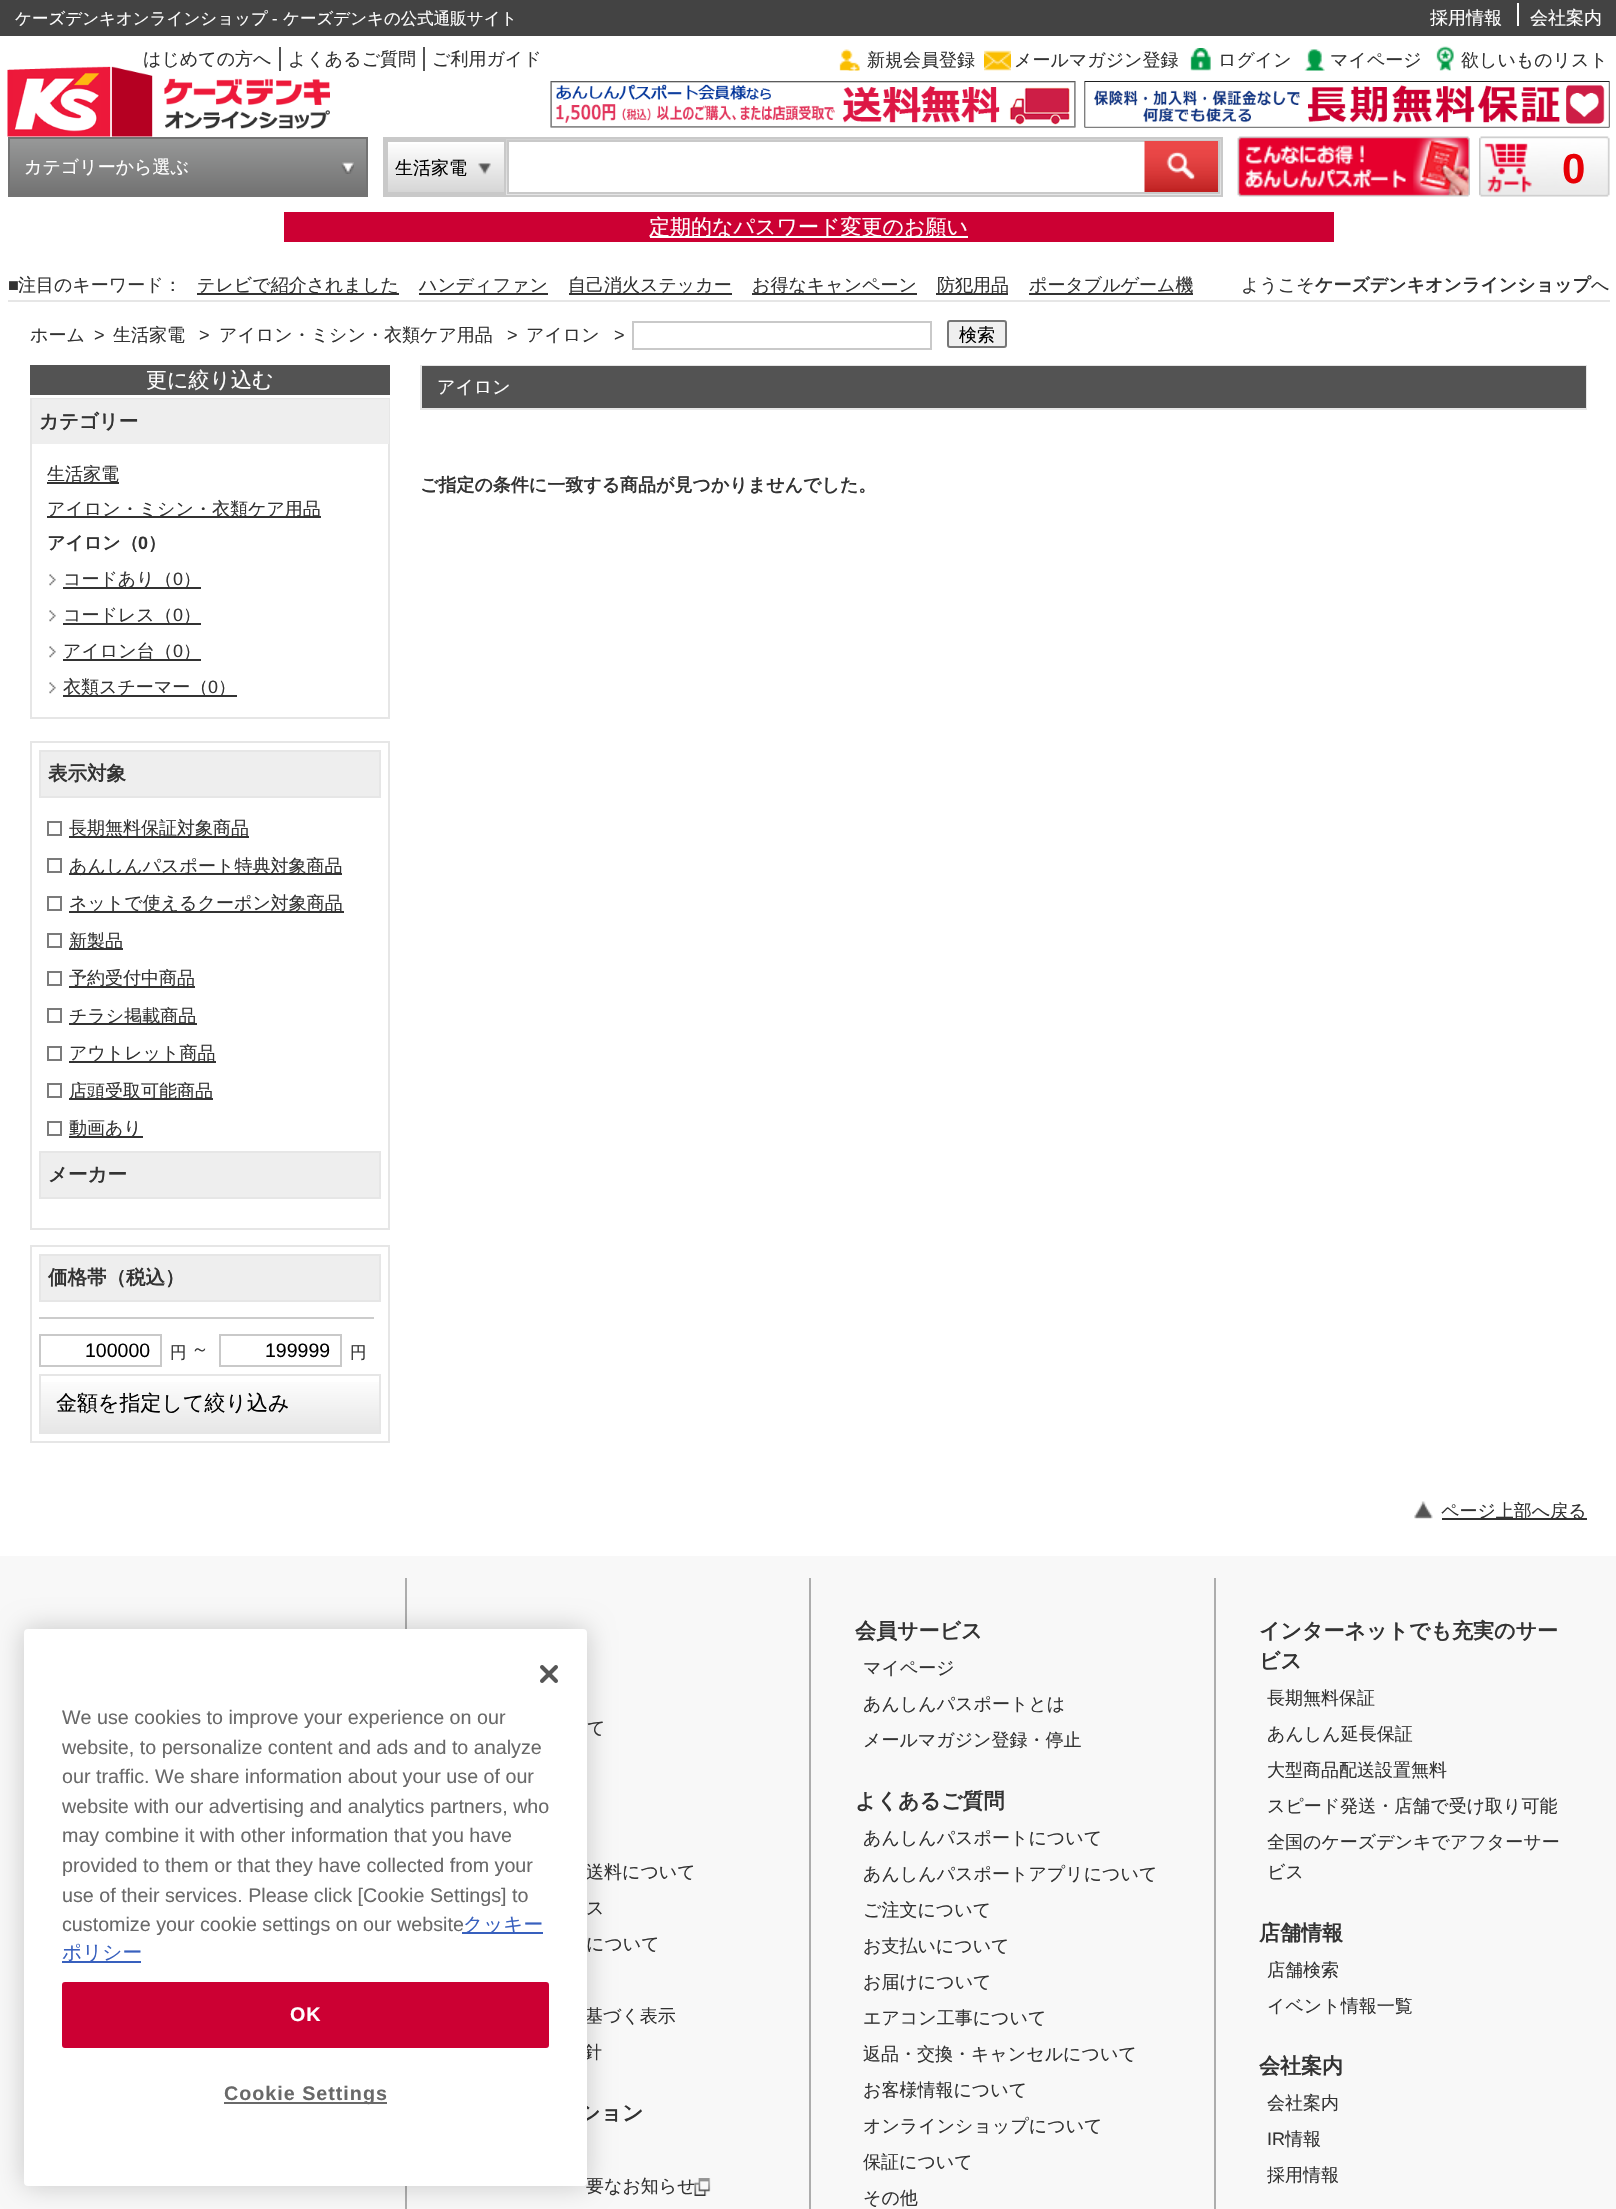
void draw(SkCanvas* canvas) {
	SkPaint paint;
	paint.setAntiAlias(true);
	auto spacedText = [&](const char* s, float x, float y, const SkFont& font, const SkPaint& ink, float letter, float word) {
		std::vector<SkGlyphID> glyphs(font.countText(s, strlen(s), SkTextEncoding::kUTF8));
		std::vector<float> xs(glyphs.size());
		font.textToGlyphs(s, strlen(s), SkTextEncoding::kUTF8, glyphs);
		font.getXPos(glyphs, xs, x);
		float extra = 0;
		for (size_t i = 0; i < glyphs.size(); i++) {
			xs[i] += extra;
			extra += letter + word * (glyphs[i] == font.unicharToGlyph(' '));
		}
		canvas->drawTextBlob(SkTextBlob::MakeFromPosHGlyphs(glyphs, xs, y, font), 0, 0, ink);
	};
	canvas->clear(0xffffffff);
	paint.setColor(0xff434343);
	canvas->drawRect(SkRect::MakeXYWH(0, 0, 1616, 36), paint);
	SkFont f1(fontMgr->matchFamilyStyle("WenQuanYi Zen Hei", SkFontStyle(500, SkFontStyle::kNormal_Width, SkFontStyle::kUpright_Slant)), 16.5);
	f1.setSubpixel(true);
	paint.setColor(0xffffffff);
	canvas->drawString("ケーズデンキオンラインショップ", 15, 24, f1, paint);
	SkFont f2(fontMgr->matchFamilyStyle("Liberation Sans", SkFontStyle::Normal()), 16.5);
	f2.setSubpixel(true);
	canvas->drawString("-", 272, 24, f2, paint);
	canvas->drawString("ケーズデンキの公式通販サイト", 283, 24, f1, paint);
	canvas->drawRect(SkRect::MakeXYWH(1517, 3, 2, 23), paint);
	canvas->save();
	canvas->clipRect(SkRect::MakeXYWH(1430, 3, 172, 23));
	SkFont f3(fontMgr->matchFamilyStyle("WenQuanYi Zen Hei", SkFontStyle(500, SkFontStyle::kNormal_Width, SkFontStyle::kUpright_Slant)), 18);
	f3.setSubpixel(true);
	canvas->drawString("採用情報", 1430, 24, f3, paint);
	canvas->drawString("会社案内", 1530, 24, f3, paint);
	canvas->restore();
	canvas->drawImageRect(SkImages::DeferredFromEncodedData(SkData::MakeFromFileName("img6.png")), SkRect::MakeXYWH(7, 66, 323, 71), SkSamplingOptions());
	paint.setColor(0xff535353);
	canvas->drawRect(SkRect::MakeXYWH(279, 47, 2, 24), paint);
	paint.setColor(0xff333333);
	canvas->drawString("はじめての方へ", 143, 65, f3, paint);
	paint.setColor(0xff535353);
	canvas->drawRect(SkRect::MakeXYWH(423, 47, 2, 24), paint);
	paint.setColor(0xff333333);
	canvas->drawString("よくあるご質問", 288, 65, f3, paint);
	canvas->drawString("ご利用ガイド", 432, 65, f3, paint);
	canvas->drawImageRect(SkImages::DeferredFromEncodedData(SkData::MakeFromFileName("img1.png")), SkRect::MakeXYWH(839, 49, 21, 22), SkSamplingOptions());
	canvas->drawString("新規会員登録", 867, 66, f3, paint);
	canvas->drawImageRect(SkImages::DeferredFromEncodedData(SkData::MakeFromFileName("img2.png")), SkRect::MakeXYWH(984, 50, 27, 21), SkSamplingOptions());
	canvas->drawString("メールマガジン登録", 1014, 66, f3, paint);
	canvas->drawImageRect(SkImages::DeferredFromEncodedData(SkData::MakeFromFileName("img3.png")), SkRect::MakeXYWH(1190, 48, 21, 23), SkSamplingOptions());
	canvas->drawString("ログイン", 1218, 66, f3, paint);
	canvas->drawImageRect(SkImages::DeferredFromEncodedData(SkData::MakeFromFileName("img4.png")), SkRect::MakeXYWH(1304, 49, 21, 22), SkSamplingOptions());
	canvas->drawString("マイページ", 1330, 66, f3, paint);
	canvas->drawImageRect(SkImages::DeferredFromEncodedData(SkData::MakeFromFileName("img5.png")), SkRect::MakeXYWH(1436, 46, 18, 25), SkSamplingOptions());
	canvas->drawString("欲しいものリスト", 1461, 66, f3, paint);
	canvas->drawImageRect(SkImages::DeferredFromEncodedData(SkData::MakeFromFileName("img7.png")), SkRect::MakeXYWH(550, 81, 526, 47), SkSamplingOptions());
	canvas->drawImageRect(SkImages::DeferredFromEncodedData(SkData::MakeFromFileName("img8.png")), SkRect::MakeXYWH(1084, 81, 526, 47), SkSamplingOptions());
	{
		const SkColor colors[] = {0xff989999, 0xff727272};
		const float stops[] = {0, 1};
		const SkPoint ends[] = {{188, 138}, {188, 195}};
		paint.setShader(SkGradientShader::MakeLinear(ends, colors, stops, 2, SkTileMode::kClamp));
		paint.setAlpha(255);
	}
	canvas->drawRect(SkRect::MakeXYWH(10, 139, 356, 56), paint);
	paint.setStroke(true);
	paint.setStrokeWidth(2);
	paint.setShader(nullptr);
	paint.setColor(0xff737373);
	canvas->drawRect(SkRect::MakeXYWH(9, 138, 358, 58), paint);
	paint.setStroke(false);
	paint.setColor(0xffffffff);
	canvas->drawString("カテゴリーから選ぶ", 24, 173, f3, paint);
	canvas->drawImageRect(SkImages::DeferredFromEncodedData(SkData::MakeFromFileName("img9.png")), SkRect::MakeXYWH(341, 162, 13, 12), SkSamplingOptions());
	{
		const SkColor colors[] = {0xffffffff, 0xffd6d6d6};
		const float stops[] = {0, 1};
		const SkPoint ends[] = {{446, 141}, {446, 192}};
		paint.setShader(SkGradientShader::MakeLinear(ends, colors, stops, 2, SkTileMode::kClamp));
		paint.setAlpha(255);
	}
	canvas->drawRect(SkRect::MakeXYWH(388, 144, 116, 48), paint);
	paint.setShader(nullptr);
	paint.setColor(0xffc9c9c9);
	canvas->drawRect(SkRect::MakeXYWH(383, 137, 121, 5), paint);
	canvas->drawRect(SkRect::MakeXYWH(383, 192, 121, 5), paint);
	canvas->drawRect(SkRect::MakeXYWH(383, 137, 5, 60), paint);
	paint.setColor(0xff000000);
	canvas->drawString("生活家電", 395, 174, f3, paint);
	canvas->drawImageRect(SkImages::DeferredFromEncodedData(SkData::MakeFromFileName("img10.png")), SkRect::MakeXYWH(478, 163, 13, 12), SkSamplingOptions());
	{
		const SkColor colors[] = {0xffd2d2d2, 0xffe5e5e6};
		const float stops[] = {0, 1};
		const SkPoint ends[] = {{863, 138}, {863, 195}};
		paint.setShader(SkGradientShader::MakeLinear(ends, colors, stops, 2, SkTileMode::kClamp));
		paint.setAlpha(255);
	}
	canvas->drawRect(SkRect::MakeXYWH(506, 139, 715, 56), paint);
	paint.setStroke(true);
	paint.setShader(nullptr);
	paint.setColor(0xffc9c9c9);
	canvas->drawRect(SkRect::MakeXYWH(505, 138, 717, 58), paint);
	paint.setStroke(false);
	paint.setColor(0xffffffff);
	canvas->drawRect(SkRect::MakeXYWH(509, 142, 636, 50), paint);
	paint.setStroke(true);
	paint.setColor(0xffc9c9c9);
	canvas->drawRect(SkRect::MakeXYWH(508, 141, 711, 52), paint);
	canvas->drawImageRect(SkImages::DeferredFromEncodedData(SkData::MakeFromFileName("img11.png")), SkRect::MakeXYWH(1144, 141, 74, 51), SkSamplingOptions());
	canvas->drawImageRect(SkImages::DeferredFromEncodedData(SkData::MakeFromFileName("img12.png")), SkRect::MakeXYWH(1237, 136, 233, 61), SkSamplingOptions());
	canvas->drawImageRect(SkImages::DeferredFromEncodedData(SkData::MakeFromFileName("img13.png")), SkRect::MakeXYWH(1479, 136, 131, 61), SkSamplingOptions());
	SkFont f4(fontMgr->matchFamilyStyle("Liberation Sans", SkFontStyle::Bold()), 42);
	f4.setSubpixel(true);
	paint.setStroke(false);
	paint.setColor(0xffe70006);
	canvas->drawString("0", 1562, 183, f4, paint);
	paint.setColor(0xffcc0033);
	canvas->drawRect(SkRect::MakeXYWH(284, 212, 1050, 30), paint);
	paint.setColor(0xffffffff);
	canvas->drawRect(SkRect::MakeXYWH(650, 236, 318, 2), paint);
	SkFont f5(fontMgr->matchFamilyStyle("WenQuanYi Zen Hei", SkFontStyle(500, SkFontStyle::kNormal_Width, SkFontStyle::kUpright_Slant)), 21);
	f5.setSubpixel(true);
	canvas->drawString("定期的なパスワード変更のお願い", 649, 234, f5, paint);
	paint.setColor(0xffe6e6e6);
	canvas->drawRect(SkRect::MakeXYWH(8, 300, 1602, 2), paint);
	SkFont f6(fontMgr->matchFamilyStyle("Liberation Sans", SkFontStyle::Normal()), 18);
	f6.setSubpixel(true);
	paint.setColor(0xff333333);
	canvas->drawString("■", 8, 291, f6, paint);
	canvas->drawString("注目のキーワード：", 18, 291, f3, paint);
	canvas->drawRect(SkRect::MakeXYWH(197, 293, 202, 2), paint);
	canvas->drawString("テレビで紹介されました", 197, 291, f3, paint);
	canvas->drawRect(SkRect::MakeXYWH(419, 293, 129, 2), paint);
	canvas->drawString("ハンディファン", 419, 291, f3, paint);
	canvas->drawRect(SkRect::MakeXYWH(569, 293, 163, 2), paint);
	canvas->drawString("自己消火ステッカー", 568, 291, f3, paint);
	canvas->drawRect(SkRect::MakeXYWH(752, 293, 165, 2), paint);
	canvas->drawString("お得なキャンペーン", 752, 291, f3, paint);
	canvas->drawRect(SkRect::MakeXYWH(936, 293, 72, 2), paint);
	canvas->drawString("防犯用品", 937, 291, f3, paint);
	canvas->drawRect(SkRect::MakeXYWH(1029, 293, 164, 2), paint);
	canvas->drawString("ポータブルゲーム機", 1029, 291, f3, paint);
	canvas->drawString("ようこそ", 1241, 291, f3, paint);
	SkFont f7(fontMgr->matchFamilyStyle("WenQuanYi Zen Hei", SkFontStyle::Bold()), 18);
	f7.setSubpixel(true);
	canvas->drawString("ケーズデンキオンラインショップ", 1315, 291, f7, paint);
	canvas->drawString("へ", 1591, 291, f3, paint);
	canvas->drawString("ホーム", 30, 341, f3, paint);
	canvas->drawString(">", 94, 341, f6, paint);
	canvas->drawString("生活家電", 113, 341, f3, paint);
	canvas->drawString(">", 199, 341, f6, paint);
	canvas->drawString("アイロン・ミシン・衣類ケア用品", 219, 341, f3, paint);
	canvas->drawString(">", 507, 341, f6, paint);
	canvas->drawString("アイロン", 526, 341, f3, paint);
	canvas->drawString(">", 614, 341, f6, paint);
	paint.setStroke(true);
	paint.setColor(0xffc9c9c9);
	canvas->drawRect(SkRect::MakeXYWH(633, 322, 298, 27), paint);
	paint.setStroke(false);
	paint.setColor(0xffefefef);
	canvas->drawRoundRect(SkRect::MakeXYWH(948, 321, 58, 26), 2, 2, paint);
	paint.setStroke(true);
	paint.setColor(0xff767676);
	canvas->drawRoundRect(SkRect::MakeXYWH(948, 321, 58, 26), 2, 2, paint);
	paint.setStroke(false);
	paint.setColor(0xff000000);
	canvas->drawString("検索", 959, 341, f3, paint);
	paint.setColor(0xff535353);
	canvas->drawRect(SkRect::MakeXYWH(30, 365, 360, 30), paint);
	paint.setColor(0xffffffff);
	canvas->drawString("更に絞り込む", 146, 387, f5, paint);
	paint.setStroke(true);
	paint.setColor(0xffe6e6e6);
	canvas->drawRect(SkRect::MakeXYWH(31, 399, 358, 319), paint);
	paint.setStroke(false);
	paint.setColor(0xffeeeeee);
	canvas->drawRect(SkRect::MakeXYWH(32, 399, 357, 45), paint);
	SkFont f8(fontMgr->matchFamilyStyle("WenQuanYi Zen Hei", SkFontStyle::Bold()), 19.5);
	f8.setSubpixel(true);
	paint.setColor(0xff333333);
	canvas->drawString("カテゴリー", 39, 428, f8, paint);
	canvas->drawRect(SkRect::MakeXYWH(47, 482, 72, 2), paint);
	canvas->drawString("生活家電", 47, 480, f3, paint);
	canvas->drawRect(SkRect::MakeXYWH(47, 516, 274, 2), paint);
	canvas->drawString("アイロン・ミシン・衣類ケア用品", 47, 515, f3, paint);
	canvas->drawString("アイロン（", 47, 549, f7, paint);
	SkFont f9(fontMgr->matchFamilyStyle("Liberation Sans", SkFontStyle::Bold()), 18);
	f9.setSubpixel(true);
	canvas->drawString("0", 138, 549, f9, paint);
	canvas->drawString("）", 148, 549, f7, paint);
	canvas->drawImageRect(SkImages::DeferredFromEncodedData(SkData::MakeFromFileName("img14.png")), SkRect::MakeXYWH(49, 574, 7, 12), SkSamplingOptions());
	canvas->drawRect(SkRect::MakeXYWH(63, 587, 138, 2), paint);
	canvas->drawString("コードあり（", 63, 585, f3, paint);
	canvas->drawString("0", 173, 585, f6, paint);
	canvas->drawString("）", 183, 585, f3, paint);
	canvas->drawImageRect(SkImages::DeferredFromEncodedData(SkData::MakeFromFileName("img14.png")), SkRect::MakeXYWH(49, 610, 7, 12), SkSamplingOptions());
	canvas->drawRect(SkRect::MakeXYWH(63, 623, 138, 2), paint);
	canvas->drawString("コードレス（", 63, 621, f3, paint);
	canvas->drawString("0", 173, 621, f6, paint);
	canvas->drawString("）", 183, 621, f3, paint);
	canvas->drawImageRect(SkImages::DeferredFromEncodedData(SkData::MakeFromFileName("img14.png")), SkRect::MakeXYWH(49, 646, 7, 12), SkSamplingOptions());
	canvas->drawRect(SkRect::MakeXYWH(63, 659, 138, 2), paint);
	canvas->drawString("アイロン台（", 63, 657, f3, paint);
	canvas->drawString("0", 173, 657, f6, paint);
	canvas->drawString("）", 183, 657, f3, paint);
	canvas->drawImageRect(SkImages::DeferredFromEncodedData(SkData::MakeFromFileName("img14.png")), SkRect::MakeXYWH(49, 682, 7, 12), SkSamplingOptions());
	canvas->drawRect(SkRect::MakeXYWH(63, 695, 174, 2), paint);
	canvas->drawString("衣類スチーマー（", 63, 693, f3, paint);
	canvas->drawString("0", 208, 693, f6, paint);
	canvas->drawString("）", 218, 693, f3, paint);
	paint.setStroke(true);
	paint.setColor(0xffe6e6e6);
	canvas->drawRect(SkRect::MakeXYWH(31, 742, 358, 487), paint);
	paint.setStroke(false);
	paint.setColor(0xffeeeeee);
	canvas->drawRect(SkRect::MakeXYWH(40, 751, 340, 46), paint);
	paint.setStroke(true);
	paint.setColor(0xffe6e6e6);
	canvas->drawRect(SkRect::MakeXYWH(40, 751, 340, 46), paint);
	paint.setStroke(false);
	paint.setColor(0xff333333);
	canvas->drawString("表示対象", 48, 780, f8, paint);
	paint.setStroke(true);
	paint.setColor(0xff7b7b7b);
	canvas->drawRect(SkRect::MakeXYWH(48, 822, 13, 13), paint);
	paint.setStroke(false);
	paint.setColor(0xff333333);
	canvas->drawRect(SkRect::MakeXYWH(69, 836, 180, 2), paint);
	canvas->drawString("長期無料保証対象商品", 69, 834, f3, paint);
	paint.setStroke(true);
	paint.setColor(0xff7b7b7b);
	canvas->drawRect(SkRect::MakeXYWH(48, 859, 13, 13), paint);
	paint.setStroke(false);
	paint.setColor(0xff333333);
	canvas->drawRect(SkRect::MakeXYWH(69, 873, 273, 2), paint);
	canvas->drawString("あんしんパスポート特典対象商品", 69, 872, f3, paint);
	paint.setStroke(true);
	paint.setColor(0xff7b7b7b);
	canvas->drawRect(SkRect::MakeXYWH(48, 897, 13, 13), paint);
	paint.setStroke(false);
	paint.setColor(0xff333333);
	canvas->drawRect(SkRect::MakeXYWH(69, 911, 275, 2), paint);
	canvas->drawString("ネットで使えるクーポン対象商品", 69, 909, f3, paint);
	paint.setStroke(true);
	paint.setColor(0xff7b7b7b);
	canvas->drawRect(SkRect::MakeXYWH(48, 934, 13, 13), paint);
	paint.setStroke(false);
	paint.setColor(0xff333333);
	canvas->drawRect(SkRect::MakeXYWH(69, 948, 54, 2), paint);
	canvas->drawString("新製品", 69, 947, f3, paint);
	paint.setStroke(true);
	paint.setColor(0xff7b7b7b);
	canvas->drawRect(SkRect::MakeXYWH(48, 972, 13, 13), paint);
	paint.setStroke(false);
	paint.setColor(0xff333333);
	canvas->drawRect(SkRect::MakeXYWH(69, 986, 126, 2), paint);
	canvas->drawString("予約受付中商品", 69, 984, f3, paint);
	paint.setStroke(true);
	paint.setColor(0xff7b7b7b);
	canvas->drawRect(SkRect::MakeXYWH(48, 1009, 13, 13), paint);
	paint.setStroke(false);
	paint.setColor(0xff333333);
	canvas->drawRect(SkRect::MakeXYWH(69, 1023, 128, 2), paint);
	canvas->drawString("チラシ掲載商品", 69, 1022, f3, paint);
	paint.setStroke(true);
	paint.setColor(0xff7b7b7b);
	canvas->drawRect(SkRect::MakeXYWH(48, 1047, 13, 13), paint);
	paint.setStroke(false);
	paint.setColor(0xff333333);
	canvas->drawRect(SkRect::MakeXYWH(69, 1061, 147, 2), paint);
	canvas->drawString("アウトレット商品", 69, 1059, f3, paint);
	paint.setStroke(true);
	paint.setColor(0xff7b7b7b);
	canvas->drawRect(SkRect::MakeXYWH(48, 1084, 13, 13), paint);
	paint.setStroke(false);
	paint.setColor(0xff333333);
	canvas->drawRect(SkRect::MakeXYWH(69, 1098, 144, 2), paint);
	canvas->drawString("店頭受取可能商品", 69, 1097, f3, paint);
	paint.setStroke(true);
	paint.setColor(0xff7b7b7b);
	canvas->drawRect(SkRect::MakeXYWH(48, 1122, 13, 13), paint);
	paint.setStroke(false);
	paint.setColor(0xff333333);
	canvas->drawRect(SkRect::MakeXYWH(69, 1136, 74, 2), paint);
	canvas->drawString("動画あり", 69, 1134, f3, paint);
	paint.setColor(0xffeeeeee);
	canvas->drawRect(SkRect::MakeXYWH(40, 1152, 340, 46), paint);
	paint.setStroke(true);
	paint.setColor(0xffe6e6e6);
	canvas->drawRect(SkRect::MakeXYWH(40, 1152, 340, 46), paint);
	paint.setStroke(false);
	paint.setColor(0xff333333);
	canvas->drawString("メーカー", 48, 1181, f8, paint);
	paint.setStroke(true);
	paint.setColor(0xffe6e6e6);
	canvas->drawRect(SkRect::MakeXYWH(31, 1246, 358, 196), paint);
	paint.setStroke(false);
	paint.setColor(0xffeeeeee);
	canvas->drawRect(SkRect::MakeXYWH(40, 1255, 340, 46), paint);
	paint.setStroke(true);
	paint.setColor(0xffe6e6e6);
	canvas->drawRect(SkRect::MakeXYWH(40, 1255, 340, 46), paint);
	paint.setStroke(false);
	paint.setColor(0xff333333);
	canvas->drawString("価格帯（税込）", 48, 1284, f8, paint);
	paint.setColor(0xffcccccc);
	canvas->drawRect(SkRect::MakeXYWH(39, 1317, 335, 2), paint);
	paint.setStroke(true);
	paint.setColor(0xffc9c9c9);
	canvas->drawRect(SkRect::MakeXYWH(40, 1335, 121, 31), paint);
	SkFont f10(fontMgr->matchFamilyStyle("Liberation Sans", SkFontStyle::Normal()), 19.5);
	f10.setSubpixel(true);
	paint.setStroke(false);
	paint.setColor(0xff000000);
	canvas->drawString("100000", 85, 1357, f10, paint);
	paint.setColor(0xff333333);
	canvas->drawString("円", 170, 1358, f1, paint);
	canvas->drawString("～", 191, 1355, f3, paint);
	paint.setStroke(true);
	paint.setColor(0xffc9c9c9);
	canvas->drawRect(SkRect::MakeXYWH(220, 1335, 121, 31), paint);
	paint.setStroke(false);
	paint.setColor(0xff000000);
	canvas->drawString("199999", 265, 1357, f10, paint);
	paint.setColor(0xff333333);
	canvas->drawString("円", 350, 1358, f1, paint);
	{
		const SkColor colors[] = {0xffffffff, 0xffe6e6e6};
		const float stops[] = {0, 1};
		const SkPoint ends[] = {{210, 1376}, {210, 1433}};
		paint.setShader(SkGradientShader::MakeLinear(ends, colors, stops, 2, SkTileMode::kClamp));
		paint.setAlpha(255);
	}
	canvas->drawRect(SkRect::MakeXYWH(41, 1382, 338, 50), paint);
	paint.setStroke(true);
	paint.setShader(nullptr);
	paint.setColor(0xffe6e6e6);
	canvas->drawRect(SkRect::MakeXYWH(40, 1375, 340, 58), paint);
	paint.setStroke(false);
	paint.setColor(0xff000000);
	canvas->drawString("金額を指定して絞り込み", 56, 1410, f5, paint);
	paint.setStroke(true);
	paint.setColor(0xffe6e6e6);
	canvas->drawRect(SkRect::MakeXYWH(421, 366, 1165, 43), paint);
	paint.setStroke(false);
	paint.setColor(0xff535353);
	canvas->drawRect(SkRect::MakeXYWH(422, 366, 1164, 42), paint);
	paint.setColor(0xffffffff);
	canvas->drawString("アイロン", 437, 393, f3, paint);
	paint.setColor(0xff333333);
	canvas->drawString("ご指定の条件に一致する商品が見つかりませんでした。", 420, 491, f7, paint);
	canvas->drawImageRect(SkImages::DeferredFromEncodedData(SkData::MakeFromFileName("img15.png")), SkRect::MakeXYWH(1414, 1501, 19, 18), SkSamplingOptions());
	canvas->drawRect(SkRect::MakeXYWH(1442, 1518, 145, 2), paint);
	canvas->drawString("ページ上部へ戻る", 1441, 1517, f3, paint);
	paint.setColor(0xfff8f8f8);
	canvas->drawRect(SkRect::MakeXYWH(0, 1556, 1616, 653), paint);
	paint.setColor(0xffadadad);
	canvas->drawRect(SkRect::MakeXYWH(405, 1578, 2, 631), paint);
	paint.setColor(0xff333333);
	canvas->drawString("て", 587, 1734, f3, paint);
	canvas->drawString("送料について", 586, 1878, f3, paint);
	canvas->drawString("ス", 586, 1914, f3, paint);
	canvas->drawString("について", 586, 1950, f3, paint);
	canvas->drawString("基づく表示", 585, 2022, f3, paint);
	canvas->drawString("針", 584, 2058, f3, paint);
	SkFont f11(fontMgr->matchFamilyStyle("WenQuanYi Zen Hei", SkFontStyle::Bold()), 21);
	f11.setSubpixel(true);
	canvas->drawString("ション", 579, 2120, f11, paint);
	canvas->drawString("要なお知らせ", 586, 2192, f3, paint);
	canvas->drawImageRect(SkImages::DeferredFromEncodedData(SkData::MakeFromFileName("img16.png")), SkRect::MakeXYWH(694, 2178, 17, 18), SkSamplingOptions());
	paint.setColor(0xffadadad);
	canvas->drawRect(SkRect::MakeXYWH(809, 1578, 2, 631), paint);
	paint.setColor(0xff333333);
	canvas->drawString("会員サービス", 855, 1638, f11, paint);
	canvas->drawString("マイページ", 863, 1674, f3, paint);
	canvas->drawString("あんしんパスポートとは", 863, 1710, f3, paint);
	canvas->drawString("メールマガジン登録・停止", 863, 1746, f3, paint);
	canvas->drawString("よくあるご質問", 855, 1808, f11, paint);
	canvas->drawString("あんしんパスポートについて", 863, 1844, f3, paint);
	canvas->drawString("あんしんパスポートアプリについて", 863, 1880, f3, paint);
	canvas->drawString("ご注文について", 863, 1916, f3, paint);
	canvas->drawString("お支払いについて", 863, 1952, f3, paint);
	canvas->drawString("お届けについて", 863, 1988, f3, paint);
	canvas->drawString("エアコン工事について", 863, 2024, f3, paint);
	canvas->drawString("返品・交換・キャンセルについて", 863, 2060, f3, paint);
	canvas->drawString("お客様情報について", 863, 2096, f3, paint);
	canvas->drawString("オンラインショップについて", 863, 2132, f3, paint);
	canvas->drawString("保証について", 863, 2168, f3, paint);
	canvas->drawString("その他", 863, 2204, f3, paint);
	paint.setColor(0xffadadad);
	canvas->drawRect(SkRect::MakeXYWH(1214, 1578, 2, 631), paint);
	paint.setColor(0xff333333);
	canvas->drawString("インターネットでも充実のサー", 1259, 1638, f11, paint);
	canvas->drawString("ビス", 1259, 1668, f11, paint);
	canvas->drawString("長期無料保証", 1267, 1704, f3, paint);
	canvas->drawString("あんしん延長保証", 1267, 1740, f3, paint);
	canvas->drawString("大型商品配送設置無料", 1267, 1776, f3, paint);
	canvas->drawString("スピード発送・店舗で受け取り可能", 1267, 1812, f3, paint);
	canvas->drawString("全国のケーズデンキでアフターサー", 1267, 1848, f3, paint);
	canvas->drawString("ビス", 1267, 1878, f3, paint);
	canvas->drawString("店舗情報", 1259, 1940, f11, paint);
	canvas->drawString("店舗検索", 1267, 1976, f3, paint);
	canvas->drawString("イベント情報一覧", 1267, 2012, f3, paint);
	canvas->drawString("会社案内", 1259, 2073, f11, paint);
	canvas->drawString("会社案内", 1267, 2109, f3, paint);
	canvas->drawString("IR", 1267, 2145, f6, paint);
	canvas->drawString("情報", 1285, 2145, f3, paint);
	canvas->drawString("採用情報", 1267, 2181, f3, paint);
	paint.setColor(0x33000000);
	paint.setMaskFilter(SkMaskFilter::MakeBlur(kNormal_SkBlurStyle, 13.5));
	canvas->drawRoundRect(SkRect::MakeXYWH(24, 1629, 563, 557), 4, 4, paint);
	paint.setMaskFilter(nullptr);
	paint.setColor(0xffffffff);
	canvas->drawRoundRect(SkRect::MakeXYWH(24, 1629, 563, 557), 4, 4, paint);
	canvas->drawImageRect(SkImages::DeferredFromEncodedData(SkData::MakeFromFileName("img17.png")), SkRect::MakeXYWH(540, 1665, 18, 18), SkSamplingOptions());
	SkFont f12(fontMgr->matchFamilyStyle("Liberation Sans", SkFontStyle::Normal()), 19.7);
	f12.setSubpixel(true);
	paint.setColor(0xff696969);
	canvas->drawString("We use cookies to improve your experience on our", 62, 1724, f12, paint);
	canvas->drawString("website, to personalize content and ads and to analyze", 62, 1754, f12, paint);
	canvas->drawString("our traffic. We share information about your use of our", 62, 1783, f12, paint);
	canvas->drawString("website with our advertising and analytics partners, who", 62, 1813, f12, paint);
	canvas->drawString("may combine it with other information that you have", 62, 1842, f12, paint);
	canvas->drawString("provided to them or that they have collected from your", 62, 1872, f12, paint);
	canvas->drawString("use of their services. Please click [Cookie Settings] to", 62, 1902, f12, paint);
	canvas->drawString("customize your cookie settings on our website", 62, 1931, f12, paint);
	paint.setColor(0xff3860be);
	canvas->drawRect(SkRect::MakeXYWH(462, 1932, 81, 2), paint);
	SkFont f13(fontMgr->matchFamilyStyle("WenQuanYi Zen Hei", SkFontStyle(500, SkFontStyle::kNormal_Width, SkFontStyle::kUpright_Slant)), 19.7);
	f13.setSubpixel(true);
	canvas->drawString("クッキー", 463, 1931, f13, paint);
	canvas->drawRect(SkRect::MakeXYWH(62, 1961, 79, 2), paint);
	canvas->drawString("ポリシー", 62, 1959, f13, paint);
	paint.setColor(0xffcc0033);
	canvas->drawRoundRect(SkRect::MakeXYWH(63, 1983, 485, 64), 2, 2, paint);
	paint.setStroke(true);
	canvas->drawRoundRect(SkRect::MakeXYWH(63, 1983, 485, 64), 2, 2, paint);
	SkFont f14(fontMgr->matchFamilyStyle("Liberation Sans", SkFontStyle::Bold()), 19.7);
	f14.setSubpixel(true);
	paint.setStroke(false);
	paint.setColor(0xffffffff);
	spacedText("OK", 290, 2021, f14, paint, 1, 0);
	paint.setColor(0xff696969);
	canvas->drawRect(SkRect::MakeXYWH(224, 2102, 163, 2), paint);
	spacedText("Cookie Settings", 224, 2100, f14, paint, 1, 0);
}
